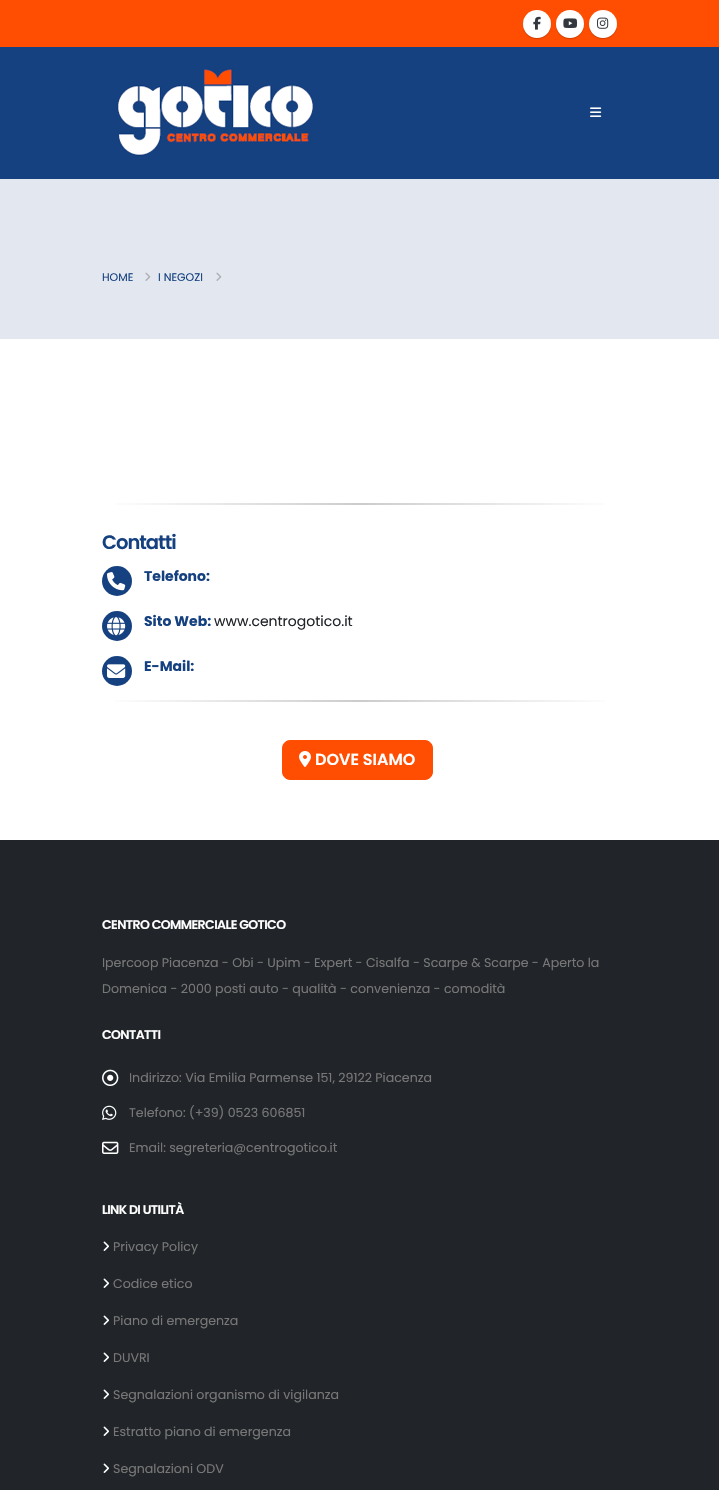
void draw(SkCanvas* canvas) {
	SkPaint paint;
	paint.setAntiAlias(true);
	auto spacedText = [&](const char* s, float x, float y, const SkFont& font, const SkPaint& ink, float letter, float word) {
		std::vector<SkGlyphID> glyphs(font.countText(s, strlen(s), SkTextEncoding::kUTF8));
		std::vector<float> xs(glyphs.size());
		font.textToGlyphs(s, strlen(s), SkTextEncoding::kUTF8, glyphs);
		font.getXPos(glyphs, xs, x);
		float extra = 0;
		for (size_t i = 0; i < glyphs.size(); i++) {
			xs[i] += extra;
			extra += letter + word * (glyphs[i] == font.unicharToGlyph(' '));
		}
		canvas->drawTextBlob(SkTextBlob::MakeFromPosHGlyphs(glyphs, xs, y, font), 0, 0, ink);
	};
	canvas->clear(0xffffffff);
	paint.setColor(0xff164180);
	canvas->drawRect(SkRect::MakeXYWH(0, 47, 719, 132), paint);
	paint.setColor(0xffff4d01);
	canvas->drawRect(SkRect::MakeXYWH(0, 0, 719, 47), paint);
	paint.setColor(0x33000000);
	paint.setMaskFilter(SkMaskFilter::MakeBlur(kNormal_SkBlurStyle, 0.5));
	canvas->drawRoundRect(SkRect::MakeXYWH(523, 11, 28, 28), 14, 14, paint);
	paint.setMaskFilter(nullptr);
	paint.setColor(0xffffffff);
	canvas->drawCircle(537, 24, 14, paint);
	canvas->drawImageRect(SkImages::DeferredFromEncodedData(SkData::MakeFromFileName("img1.png")), SkRect::MakeXYWH(533, 16, 8, 14), SkSamplingOptions());
	paint.setColor(0x33000000);
	paint.setMaskFilter(SkMaskFilter::MakeBlur(kNormal_SkBlurStyle, 0.5));
	canvas->drawRoundRect(SkRect::MakeXYWH(556, 11, 28, 28), 14, 14, paint);
	paint.setMaskFilter(nullptr);
	paint.setColor(0xffffffff);
	canvas->drawCircle(570, 24, 14, paint);
	canvas->drawImageRect(SkImages::DeferredFromEncodedData(SkData::MakeFromFileName("img2.png")), SkRect::MakeXYWH(563, 18, 15, 10), SkSamplingOptions());
	paint.setColor(0x33000000);
	paint.setMaskFilter(SkMaskFilter::MakeBlur(kNormal_SkBlurStyle, 0.5));
	canvas->drawRoundRect(SkRect::MakeXYWH(589, 11, 28, 28), 14, 14, paint);
	paint.setMaskFilter(nullptr);
	paint.setColor(0xffffffff);
	canvas->drawCircle(603, 24, 14, paint);
	canvas->drawImageRect(SkImages::DeferredFromEncodedData(SkData::MakeFromFileName("img3.png")), SkRect::MakeXYWH(597, 17, 12, 12), SkSamplingOptions());
	canvas->drawImageRect(SkImages::DeferredFromEncodedData(SkData::MakeFromFileName("img4.png")), SkRect::MakeXYWH(117, 68, 196, 88), SkSamplingOptions());
	canvas->drawImageRect(SkImages::DeferredFromEncodedData(SkData::MakeFromFileName("img5.png")), SkRect::MakeXYWH(590, 107, 12, 10), SkSamplingOptions());
	paint.setColor(0xffe3e8f0);
	canvas->drawRect(SkRect::MakeXYWH(0, 179, 719, 160), paint);
	SkFont f1(fontMgr->matchFamilyStyle("Poppins", SkFontStyle::Normal()), 11);
	f1.setSubpixel(true);
	paint.setColor(0xff164180);
	canvas->drawString("HOME", 102, 281, f1, paint);
	canvas->drawImageRect(SkImages::DeferredFromEncodedData(SkData::MakeFromFileName("img6.png")), SkRect::MakeXYWH(145, 272, 6, 9), SkSamplingOptions());
	canvas->drawString("I NEGOZI", 158, 281, f1, paint);
	canvas->drawImageRect(SkImages::DeferredFromEncodedData(SkData::MakeFromFileName("img6.png")), SkRect::MakeXYWH(216, 272, 6, 9), SkSamplingOptions());
	{
		const SkColor colors[] = {0xffffffff, 0xffcccccc, 0xffffffff};
		const float stops[] = {0, 0.5, 1};
		const SkPoint ends[] = {{618, 504}, {102, 504}};
		paint.setShader(SkGradientShader::MakeLinear(ends, colors, stops, 3, SkTileMode::kClamp));
		paint.setAlpha(255);
	}
	canvas->drawRect(SkRect::MakeXYWH(115, 503, 490, 2), paint);
	SkFont f2(fontMgr->matchFamilyStyle("Poppins", SkFontStyle(600, SkFontStyle::kNormal_Width, SkFontStyle::kUpright_Slant)), 19.5);
	f2.setSubpixel(true);
	paint.setShader(nullptr);
	paint.setColor(0xff164180);
	spacedText("Contatti", 102, 549, f2, paint, -1, 0);
	canvas->drawCircle(117, 581, 15, paint);
	canvas->drawImageRect(SkImages::DeferredFromEncodedData(SkData::MakeFromFileName("img7.png")), SkRect::MakeXYWH(107, 572, 19, 19), SkSamplingOptions());
	SkFont f3(fontMgr->matchFamilyStyle("Poppins", SkFontStyle::Bold()), 14);
	f3.setSubpixel(true);
	canvas->drawString("Telefono:", 144, 581, f3, paint);
	canvas->drawCircle(117, 626, 15, paint);
	canvas->drawImageRect(SkImages::DeferredFromEncodedData(SkData::MakeFromFileName("img8.png")), SkRect::MakeXYWH(107, 617, 19, 19), SkSamplingOptions());
	canvas->drawString("Sito Web:", 144, 626, f3, paint);
	SkFont f4(fontMgr->matchFamilyStyle("Poppins", SkFontStyle::Normal()), 14);
	f4.setSubpixel(true);
	paint.setColor(0xff212529);
	canvas->drawString("www.centrogotico.it", 214, 626, f4, paint);
	paint.setColor(0xff164180);
	canvas->drawCircle(117, 671, 15, paint);
	canvas->drawImageRect(SkImages::DeferredFromEncodedData(SkData::MakeFromFileName("img9.png")), SkRect::MakeXYWH(107, 664, 19, 14), SkSamplingOptions());
	canvas->drawString("E-Mail:", 144, 671, f3, paint);
	{
		const SkColor colors[] = {0xffffffff, 0xffcccccc, 0xffffffff};
		const float stops[] = {0, 0.5, 1};
		const SkPoint ends[] = {{618, 701}, {102, 701}};
		paint.setShader(SkGradientShader::MakeLinear(ends, colors, stops, 3, SkTileMode::kClamp));
		paint.setAlpha(255);
	}
	canvas->drawRect(SkRect::MakeXYWH(115, 700, 490, 2), paint);
	paint.setShader(nullptr);
	paint.setColor(0xffff4d01);
	canvas->drawRoundRect(SkRect::MakeXYWH(282.5, 740.5, 150, 39), 7.5, 7.5, paint);
	paint.setStroke(true);
	paint.setStrokeWidth(1);
	canvas->drawRoundRect(SkRect::MakeXYWH(282.5, 740.5, 150, 39), 7.5, 7.5, paint);
	canvas->drawImageRect(SkImages::DeferredFromEncodedData(SkData::MakeFromFileName("img10.png")), SkRect::MakeXYWH(299, 751, 12, 16), SkSamplingOptions());
	SkFont f5(fontMgr->matchFamilyStyle("Poppins", SkFontStyle(600, SkFontStyle::kNormal_Width, SkFontStyle::kUpright_Slant)), 16);
	f5.setSubpixel(true);
	paint.setStroke(false);
	paint.setColor(0xffffffff);
	canvas->drawString("DOVE SIAMO", 315, 765, f5, paint);
	paint.setColor(0xff212529);
	canvas->drawRect(SkRect::MakeXYWH(0, 840, 719, 650), paint);
	SkFont f6(fontMgr->matchFamilyStyle("Poppins", SkFontStyle(600, SkFontStyle::kNormal_Width, SkFontStyle::kUpright_Slant)), 12.6);
	f6.setSubpixel(true);
	paint.setColor(0xffffffff);
	spacedText("CENTRO COMMERCIALE GOTICO", 102, 929, f6, paint, -0.6, 0);
	SkFont f7(fontMgr->matchFamilyStyle("Poppins", SkFontStyle::Normal()), 12.6);
	f7.setSubpixel(true);
	paint.setColor(0xff777777);
	canvas->drawString("Ipercoop Piacenza - Obi - Upim - Expert - Cisalfa - Scarpe & Scarpe - Aperto la", 102, 967, f7, paint);
	canvas->drawString("Domenica - 2000 posti auto - qualità - convenienza - comodità", 102, 993, f7, paint);
	paint.setColor(0xffffffff);
	spacedText("CONTATTI", 102, 1039, f6, paint, -0.6, 0);
	canvas->drawImageRect(SkImages::DeferredFromEncodedData(SkData::MakeFromFileName("img11.png")), SkRect::MakeXYWH(102, 1069, 17, 17), SkSamplingOptions());
	paint.setColor(0xff777777);
	canvas->drawString("Indirizzo: Via Emilia Parmense 151, 29122 Piacenza", 129, 1082, f7, paint);
	canvas->drawImageRect(SkImages::DeferredFromEncodedData(SkData::MakeFromFileName("img12.png")), SkRect::MakeXYWH(102, 1105, 15, 15), SkSamplingOptions());
	canvas->drawString("Telefono: (+39) 0523 606851", 129, 1117, f7, paint);
	canvas->drawImageRect(SkImages::DeferredFromEncodedData(SkData::MakeFromFileName("img13.png")), SkRect::MakeXYWH(102, 1141, 17, 13), SkSamplingOptions());
	canvas->drawString("Email: segreteria@centrogotico.it", 129, 1152, f7, paint);
	paint.setColor(0xffffffff);
	spacedText("LINK DI UTILITÀ", 102, 1214, f6, paint, -0.6, 0);
	canvas->drawImageRect(SkImages::DeferredFromEncodedData(SkData::MakeFromFileName("img14.png")), SkRect::MakeXYWH(103, 1241, 6, 10), SkSamplingOptions());
	paint.setColor(0xff777777);
	canvas->drawString("Privacy Policy", 113, 1251, f7, paint);
	canvas->drawImageRect(SkImages::DeferredFromEncodedData(SkData::MakeFromFileName("img14.png")), SkRect::MakeXYWH(103, 1278, 6, 10), SkSamplingOptions());
	canvas->drawString("Codice etico", 113, 1288, f7, paint);
	canvas->drawImageRect(SkImages::DeferredFromEncodedData(SkData::MakeFromFileName("img14.png")), SkRect::MakeXYWH(103, 1315, 6, 10), SkSamplingOptions());
	canvas->drawString("Piano di emergenza", 113, 1325, f7, paint);
	canvas->drawImageRect(SkImages::DeferredFromEncodedData(SkData::MakeFromFileName("img14.png")), SkRect::MakeXYWH(103, 1352, 6, 10), SkSamplingOptions());
	canvas->drawString("DUVRI", 113, 1362, f7, paint);
	canvas->drawImageRect(SkImages::DeferredFromEncodedData(SkData::MakeFromFileName("img14.png")), SkRect::MakeXYWH(103, 1389, 6, 10), SkSamplingOptions());
	canvas->drawString("Segnalazioni organismo di vigilanza", 113, 1399, f7, paint);
	canvas->drawImageRect(SkImages::DeferredFromEncodedData(SkData::MakeFromFileName("img14.png")), SkRect::MakeXYWH(103, 1426, 6, 10), SkSamplingOptions());
	canvas->drawString("Estratto piano di emergenza", 113, 1436, f7, paint);
	canvas->drawImageRect(SkImages::DeferredFromEncodedData(SkData::MakeFromFileName("img14.png")), SkRect::MakeXYWH(103, 1463, 6, 10), SkSamplingOptions());
	canvas->drawString("Segnalazioni ODV", 113, 1473, f7, paint);
}
